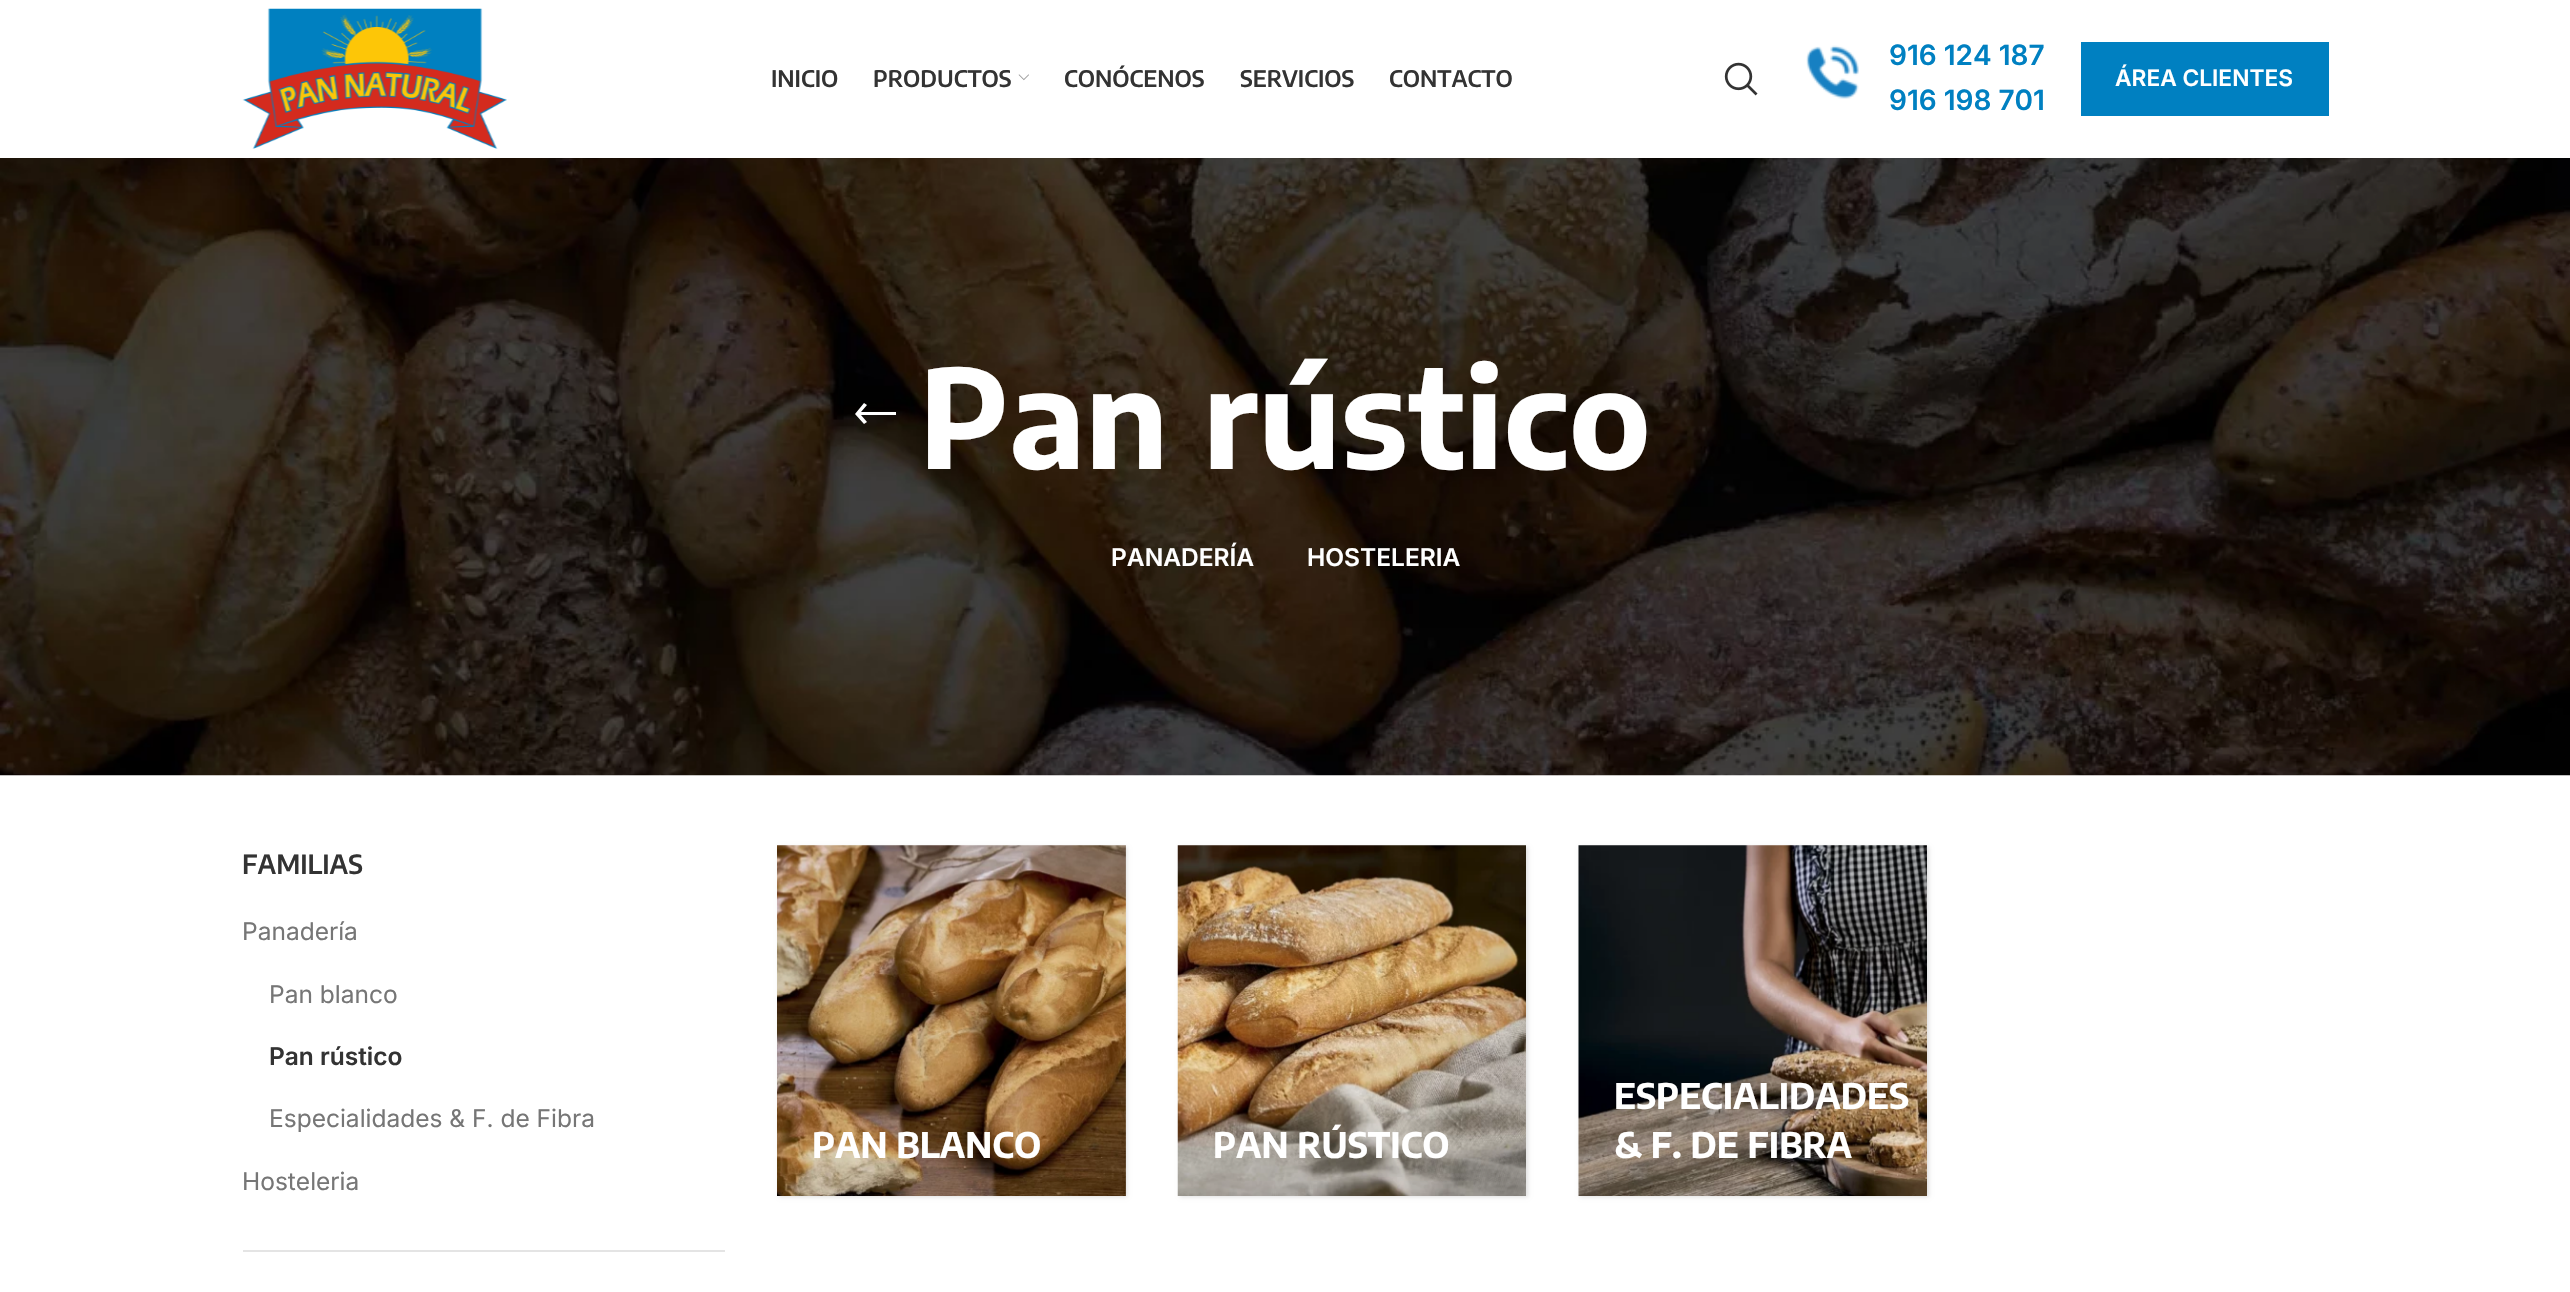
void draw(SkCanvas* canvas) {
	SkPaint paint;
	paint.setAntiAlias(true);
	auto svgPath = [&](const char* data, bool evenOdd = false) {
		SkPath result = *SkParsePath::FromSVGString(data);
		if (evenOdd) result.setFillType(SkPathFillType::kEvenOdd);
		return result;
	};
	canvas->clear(0xffffffff);
	canvas->drawImageRect(SkImages::DeferredFromEncodedData(SkData::MakeFromFileName("img1.png")), SkRect::MakeXYWH(242, 8, 265, 141), SkSamplingOptions());
	SkFont f1(fontMgr->matchFamilyStyle("Encode Sans Condensed", SkFontStyle(600, SkFontStyle::kNormal_Width, SkFontStyle::kUpright_Slant)), 22.75);
	f1.setSubpixel(true);
	paint.setColor(0xff333333);
	canvas->drawString("INICIO", 771, 87, f1, paint);
	canvas->drawString("PRODUCTOS", 873, 87, f1, paint);
	canvas->drawImageRect(SkImages::DeferredFromEncodedData(SkData::MakeFromFileName("img2.png")), SkRect::MakeXYWH(1018, 74, 11, 7), SkSamplingOptions());
	canvas->drawString("CONÓCENOS", 1064, 87, f1, paint);
	canvas->drawString("SERVICIOS", 1240, 87, f1, paint);
	canvas->drawString("CONTACTO", 1389, 87, f1, paint);
	canvas->drawImageRect(SkImages::DeferredFromEncodedData(SkData::MakeFromFileName("img3.png")), SkRect::MakeXYWH(1724, 62, 34, 34), SkSamplingOptions());
	canvas->drawImageRect(SkImages::DeferredFromEncodedData(SkData::MakeFromFileName("img4.png")), SkRect::MakeXYWH(1806, 45, 53, 54), SkSamplingOptions());
	SkFont f2(fontMgr->matchFamilyStyle("Inter", SkFontStyle(600, SkFontStyle::kNormal_Width, SkFontStyle::kUpright_Slant)), 28);
	f2.setSubpixel(true);
	paint.setColor(0xff0080c1);
	canvas->drawString("916 124 187", 1889, 65, f2, paint);
	canvas->drawString("916 198 701", 1889, 110, f2, paint);
	canvas->drawRect(SkRect::MakeXYWH(2081, 42, 248, 74), paint);
	SkFont f3(fontMgr->matchFamilyStyle("Inter", SkFontStyle(600, SkFontStyle::kNormal_Width, SkFontStyle::kUpright_Slant)), 22.75);
	f3.setSubpixel(true);
	paint.setColor(0xffffffff);
	canvas->drawString("ÁREA CLIENTES", 2115, 86, f3, paint);
	canvas->drawImageRect(SkImages::DeferredFromEncodedData(SkData::MakeFromFileName("img5.png")), SkRect::MakeXYWH(0, 158, 2570, 618), SkSamplingOptions());
	canvas->drawPath(svgPath("M867 422L861 415H896V412H861L867 405L864 403L855 414L864 424Z"), paint);
	SkFont f4(fontMgr->matchFamilyStyle("Encode Sans Condensed", SkFontStyle::Bold()), 136.5);
	f4.setSubpixel(true);
	canvas->drawString("Pan rústico", 919, 469, f4, paint);
	SkFont f5(fontMgr->matchFamilyStyle("Inter", SkFontStyle(600, SkFontStyle::kNormal_Width, SkFontStyle::kUpright_Slant)), 24.5);
	f5.setSubpixel(true);
	canvas->drawString("PANADERÍA", 1111, 566, f5, paint);
	canvas->drawString("HOSTELERIA", 1307, 566, f5, paint);
	paint.setColor(0xffe4e4e4);
	canvas->drawRect(SkRect::MakeXYWH(243, 1250, 482, 2), paint);
	SkFont f6(fontMgr->matchFamilyStyle("Encode Sans Condensed", SkFontStyle(600, SkFontStyle::kNormal_Width, SkFontStyle::kUpright_Slant)), 26.25);
	f6.setSubpixel(true);
	paint.setColor(0xff333333);
	canvas->drawString("FAMILIAS", 242, 874, f6, paint);
	SkFont f7(fontMgr->matchFamilyStyle("Inter", SkFontStyle::Normal()), 24.5);
	f7.setSubpixel(true);
	paint.setColor(0xff767676);
	canvas->drawString("Panadería", 242, 940, f7, paint);
	canvas->drawString("Pan blanco", 269, 1003, f7, paint);
	paint.setColor(0xff333333);
	canvas->drawString("Pan rústico", 269, 1065, f5, paint);
	paint.setColor(0xff767676);
	canvas->drawString("Especialidades & F. de Fibra", 269, 1127, f7, paint);
	canvas->drawString("Hosteleria", 242, 1190, f7, paint);
	paint.setColor(0x1f000000);
	paint.setMaskFilter(SkMaskFilter::MakeBlur(kNormal_SkBlurStyle, 2));
	canvas->drawRect(SkRect::MakeXYWH(779, 847, 348, 350), paint);
	paint.setMaskFilter(nullptr);
	canvas->drawImageRect(SkImages::DeferredFromEncodedData(SkData::MakeFromFileName("img6.png")), SkRect::MakeXYWH(777, 845, 349, 351), SkSamplingOptions());
	SkFont f8(fontMgr->matchFamilyStyle("Encode Sans Condensed", SkFontStyle::Bold()), 35);
	f8.setSubpixel(true);
	paint.setColor(0xffffffff);
	canvas->drawString("PAN BLANCO", 812, 1158, f8, paint);
	paint.setColor(0x1f000000);
	paint.setMaskFilter(SkMaskFilter::MakeBlur(kNormal_SkBlurStyle, 2));
	canvas->drawRect(SkRect::MakeXYWH(1180, 847, 348, 350), paint);
	paint.setMaskFilter(nullptr);
	canvas->drawImageRect(SkImages::DeferredFromEncodedData(SkData::MakeFromFileName("img7.png")), SkRect::MakeXYWH(1177, 845, 349, 351), SkSamplingOptions());
	paint.setColor(0xffffffff);
	canvas->drawString("PAN RÚSTICO", 1213, 1158, f8, paint);
	paint.setColor(0x1f000000);
	paint.setMaskFilter(SkMaskFilter::MakeBlur(kNormal_SkBlurStyle, 2));
	canvas->drawRect(SkRect::MakeXYWH(1580, 847, 349, 350), paint);
	paint.setMaskFilter(nullptr);
	canvas->drawImageRect(SkImages::DeferredFromEncodedData(SkData::MakeFromFileName("img8.png")), SkRect::MakeXYWH(1578, 845, 349, 351), SkSamplingOptions());
	paint.setColor(0xffffffff);
	canvas->drawString("ESPECIALIDADES", 1614, 1109, f8, paint);
	canvas->drawString("& F. DE FIBRA", 1614, 1158, f8, paint);
}
